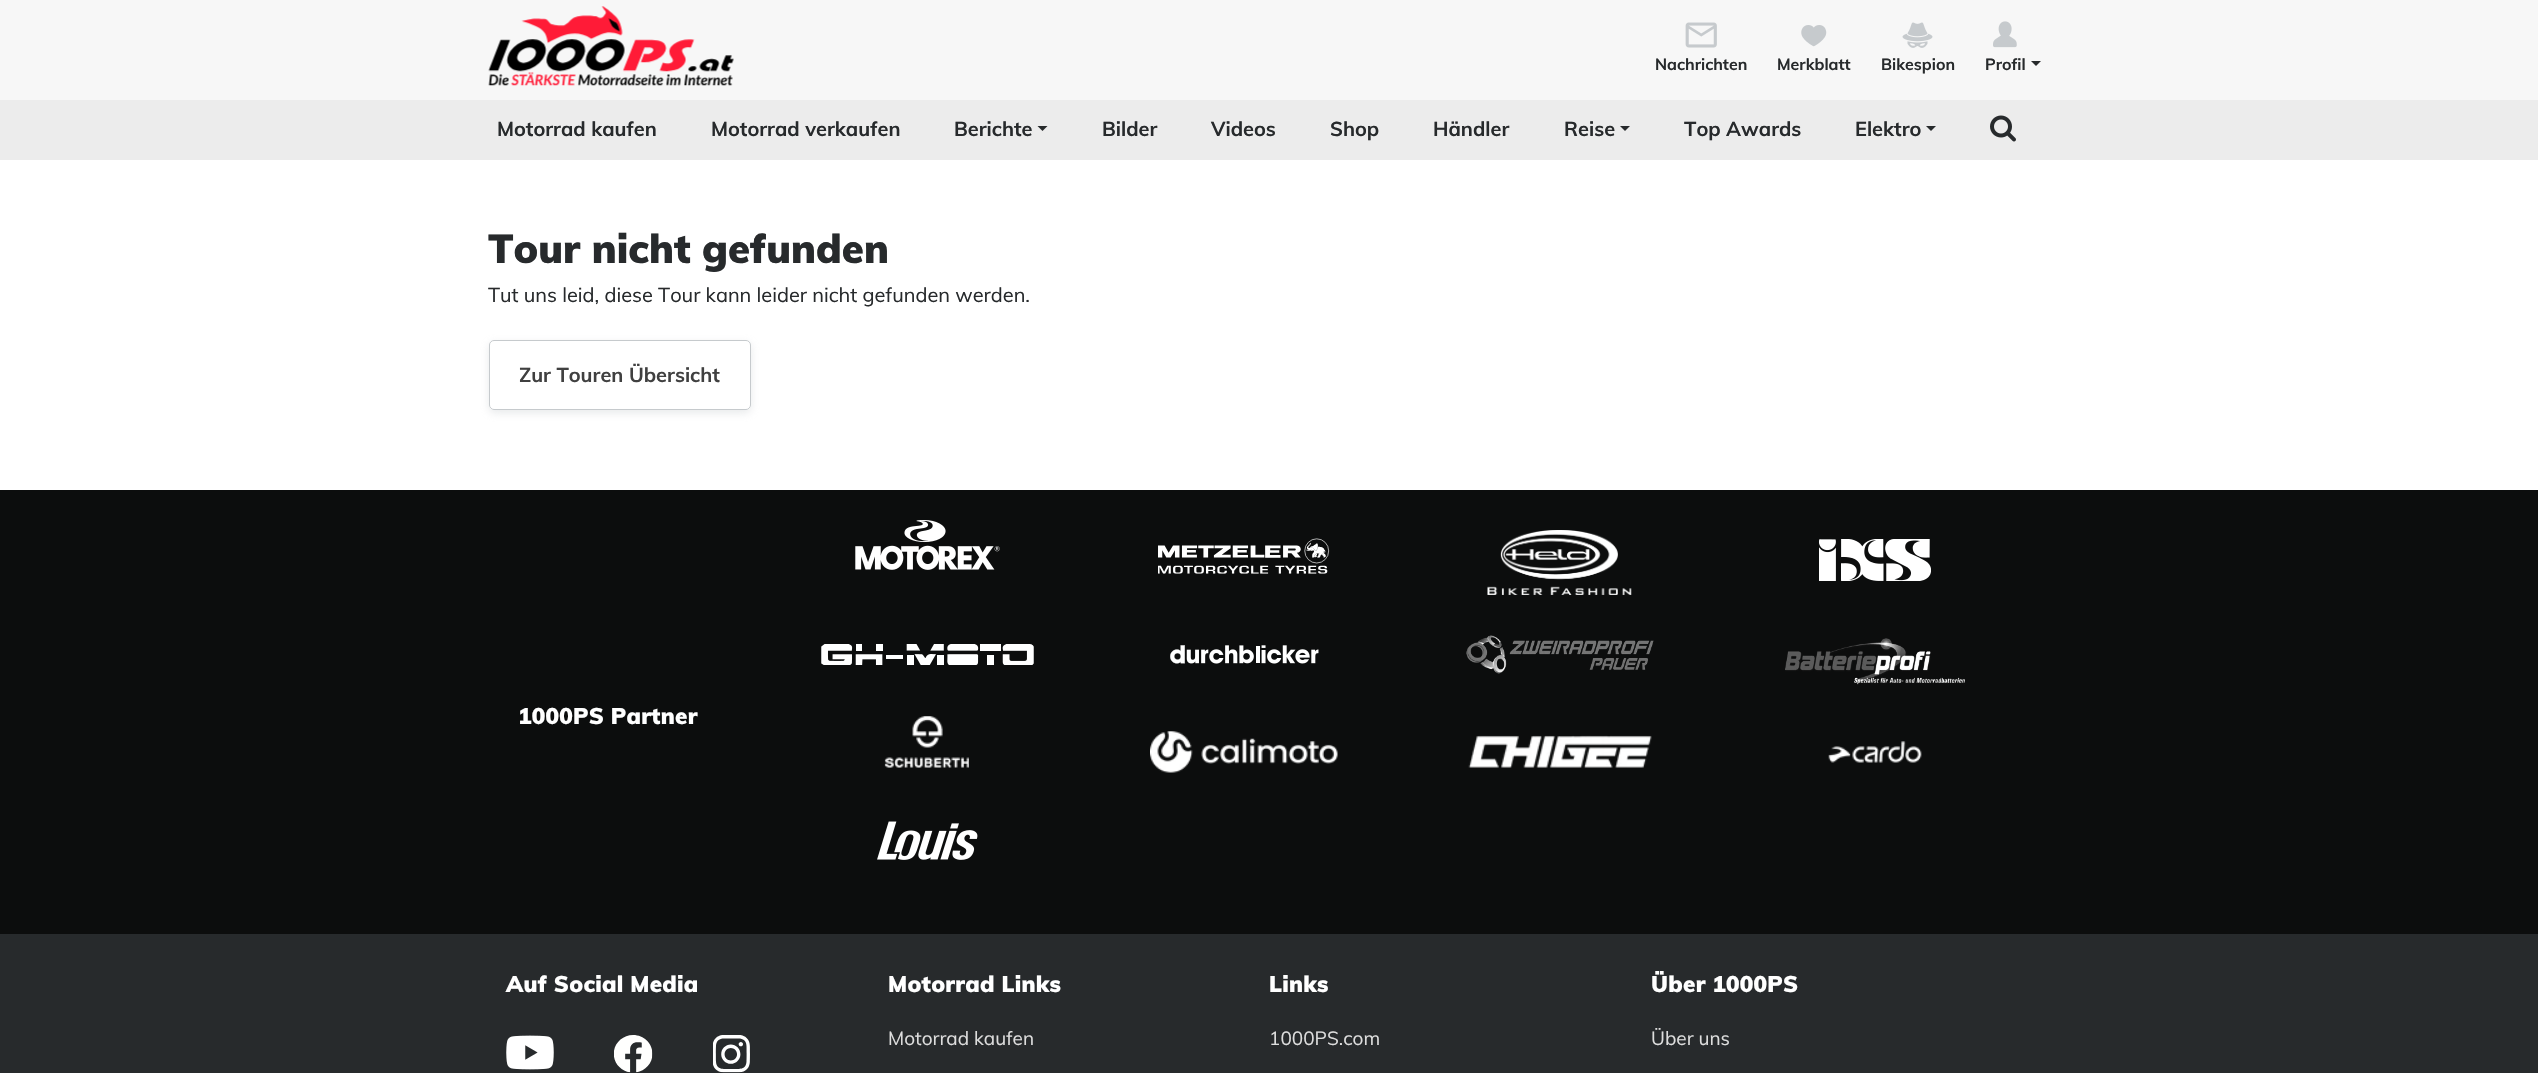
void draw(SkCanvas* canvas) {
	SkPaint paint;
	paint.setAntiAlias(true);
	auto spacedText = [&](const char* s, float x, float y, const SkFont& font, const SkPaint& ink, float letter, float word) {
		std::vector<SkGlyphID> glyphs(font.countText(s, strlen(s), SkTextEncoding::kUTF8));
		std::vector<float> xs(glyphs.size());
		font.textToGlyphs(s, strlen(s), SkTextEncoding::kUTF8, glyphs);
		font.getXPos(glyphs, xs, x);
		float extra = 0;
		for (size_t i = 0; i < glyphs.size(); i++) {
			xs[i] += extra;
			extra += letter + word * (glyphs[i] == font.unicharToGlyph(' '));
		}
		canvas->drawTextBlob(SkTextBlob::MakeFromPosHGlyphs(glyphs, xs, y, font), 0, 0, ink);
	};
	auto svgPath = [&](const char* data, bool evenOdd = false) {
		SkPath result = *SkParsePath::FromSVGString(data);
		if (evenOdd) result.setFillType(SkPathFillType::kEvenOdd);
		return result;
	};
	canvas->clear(0xffffffff);
	paint.setColor(0xfff7f7f7);
	canvas->drawRect(SkRect::MakeXYWH(0, 0, 2538, 100), paint);
	canvas->drawImageRect(SkImages::DeferredFromEncodedData(SkData::MakeFromFileName("img1.png")), SkRect::MakeXYWH(488, 6, 246, 80), SkSamplingOptions());
	canvas->drawImageRect(SkImages::DeferredFromEncodedData(SkData::MakeFromFileName("img2.png")), SkRect::MakeXYWH(1685, 22, 32, 26), SkSamplingOptions());
	SkFont f1(fontMgr->matchFamilyStyle("Muli", SkFontStyle::Bold()), 16);
	f1.setSubpixel(true);
	paint.setColor(0xff272a2c);
	canvas->drawString("Nachrichten", 1655, 70, f1, paint);
	canvas->drawImageRect(SkImages::DeferredFromEncodedData(SkData::MakeFromFileName("img3.png")), SkRect::MakeXYWH(1801, 25, 26, 22), SkSamplingOptions());
	canvas->drawString("Merkblatt", 1777, 70, f1, paint);
	canvas->drawImageRect(SkImages::DeferredFromEncodedData(SkData::MakeFromFileName("img4.png")), SkRect::MakeXYWH(1902, 22, 31, 26), SkSamplingOptions());
	canvas->drawString("Bikespion", 1881, 70, f1, paint);
	canvas->drawImageRect(SkImages::DeferredFromEncodedData(SkData::MakeFromFileName("img5.png")), SkRect::MakeXYWH(1993, 21, 24, 27), SkSamplingOptions());
	canvas->drawString("Profil", 1985, 70, f1, paint);
	canvas->drawPath(svgPath("M2031 61H2041L2036 66Z"), paint);
	paint.setColor(0xffececec);
	canvas->drawRect(SkRect::MakeXYWH(0, 100, 2538, 60), paint);
	SkFont f2(fontMgr->matchFamilyStyle("Muli", SkFontStyle::Bold()), 20);
	f2.setSubpixel(true);
	paint.setColor(0xff272a2c);
	canvas->drawString("Motorrad kaufen", 497, 136, f2, paint);
	canvas->drawString("Motorrad verkaufen", 711, 136, f2, paint);
	canvas->drawString("Berichte", 954, 136, f2, paint);
	canvas->drawPath(svgPath("M1037.5 126H1047.5L1042.5 131Z"), paint);
	canvas->drawString("Bilder", 1102, 136, f2, paint);
	canvas->drawString("Videos", 1211, 136, f2, paint);
	canvas->drawString("Shop", 1330, 136, f2, paint);
	canvas->drawString("Händler", 1433, 136, f2, paint);
	canvas->drawString("Reise", 1564, 136, f2, paint);
	canvas->drawPath(svgPath("M1620 126H1630L1625 131Z"), paint);
	canvas->drawString("Top Awards", 1684, 136, f2, paint);
	canvas->drawString("Elektro", 1855, 136, f2, paint);
	canvas->drawPath(svgPath("M1926 126H1936L1931 131Z"), paint);
	canvas->drawImageRect(SkImages::DeferredFromEncodedData(SkData::MakeFromFileName("img6.png")), SkRect::MakeXYWH(1990, 115, 26, 27), SkSamplingOptions());
	SkFont f3(fontMgr->matchFamilyStyle("Muli", SkFontStyle(900, SkFontStyle::kNormal_Width, SkFontStyle::kUpright_Slant)), 40);
	f3.setSubpixel(true);
	canvas->drawString("Tour nicht gefunden", 488, 263, f3, paint);
	SkFont f4(fontMgr->matchFamilyStyle("Muli", SkFontStyle::Normal()), 20);
	f4.setSubpixel(true);
	canvas->drawString("Tut uns leid, diese Tour kann leider nicht gefunden werden.", 488, 302, f4, paint);
	canvas->save();
	canvas->clipPath(svgPath("M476 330H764V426H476ZM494 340H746C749 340 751 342 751 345V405C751 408 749 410 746 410H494C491 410 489 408 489 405V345C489 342 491 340 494 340Z", true), true);
	paint.setColor(0x66c6cacd);
	paint.setMaskFilter(SkMaskFilter::MakeBlur(kNormal_SkBlurStyle, 4));
	canvas->drawRoundRect(SkRect::MakeXYWH(489, 343, 262, 70), 5, 5, paint);
	paint.setMaskFilter(nullptr);
	canvas->restore();
	paint.setStroke(true);
	paint.setStrokeWidth(1);
	paint.setColor(0xffc6cacd);
	canvas->drawRoundRect(SkRect::MakeXYWH(489.5, 340.5, 261, 69), 4.5, 4.5, paint);
	paint.setStroke(false);
	paint.setColor(0xff404040);
	canvas->drawString("Zur Touren Übersicht", 519, 382, f2, paint);
	paint.setColor(0xff272a2c);
	canvas->drawRect(SkRect::MakeXYWH(0, 934, 2538, 139), paint);
	paint.setColor(0xff0c0d0d);
	canvas->drawRect(SkRect::MakeXYWH(0, 490, 2538, 444), paint);
	SkFont f5(fontMgr->matchFamilyStyle("Muli", SkFontStyle(900, SkFontStyle::kNormal_Width, SkFontStyle::kUpright_Slant)), 22.5);
	f5.setSubpixel(true);
	paint.setColor(0xffffffff);
	spacedText("1000PS Partner", 518, 724, f5, paint, 0.25, 0);
	canvas->drawImageRect(SkImages::DeferredFromEncodedData(SkData::MakeFromFileName("img7.png")), SkRect::MakeXYWH(855, 520, 145, 50), SkSamplingOptions());
	canvas->drawImageRect(SkImages::DeferredFromEncodedData(SkData::MakeFromFileName("img8.png")), SkRect::MakeXYWH(1158, 538, 172, 36), SkSamplingOptions());
	canvas->drawImageRect(SkImages::DeferredFromEncodedData(SkData::MakeFromFileName("img9.png")), SkRect::MakeXYWH(1487, 530, 145, 65), SkSamplingOptions());
	canvas->drawImageRect(SkImages::DeferredFromEncodedData(SkData::MakeFromFileName("img10.png")), SkRect::MakeXYWH(1819, 539, 112, 42), SkSamplingOptions());
	canvas->drawImageRect(SkImages::DeferredFromEncodedData(SkData::MakeFromFileName("img11.png")), SkRect::MakeXYWH(821, 644, 213, 21), SkSamplingOptions());
	canvas->drawImageRect(SkImages::DeferredFromEncodedData(SkData::MakeFromFileName("img12.png")), SkRect::MakeXYWH(1170, 645, 149, 19), SkSamplingOptions());
	canvas->drawImageRect(SkImages::DeferredFromEncodedData(SkData::MakeFromFileName("img13.png")), SkRect::MakeXYWH(1466, 635, 188, 39), SkSamplingOptions());
	canvas->drawImageRect(SkImages::DeferredFromEncodedData(SkData::MakeFromFileName("img14.png")), SkRect::MakeXYWH(1785, 638, 180, 47), SkSamplingOptions());
	canvas->drawImageRect(SkImages::DeferredFromEncodedData(SkData::MakeFromFileName("img15.png")), SkRect::MakeXYWH(884, 716, 85, 52), SkSamplingOptions());
	canvas->drawImageRect(SkImages::DeferredFromEncodedData(SkData::MakeFromFileName("img16.png")), SkRect::MakeXYWH(1150, 731, 188, 42), SkSamplingOptions());
	canvas->drawImageRect(SkImages::DeferredFromEncodedData(SkData::MakeFromFileName("img17.png")), SkRect::MakeXYWH(1468, 735, 184, 33), SkSamplingOptions());
	canvas->drawImageRect(SkImages::DeferredFromEncodedData(SkData::MakeFromFileName("img18.png")), SkRect::MakeXYWH(1828, 741, 94, 22), SkSamplingOptions());
	canvas->drawImageRect(SkImages::DeferredFromEncodedData(SkData::MakeFromFileName("img19.png")), SkRect::MakeXYWH(877, 821, 101, 39), SkSamplingOptions());
	spacedText("Auf Social Media", 506, 992, f5, paint, 0.25, 0);
	canvas->drawImageRect(SkImages::DeferredFromEncodedData(SkData::MakeFromFileName("img20.png")), SkRect::MakeXYWH(506, 1035, 48, 35), SkSamplingOptions());
	canvas->drawImageRect(SkImages::DeferredFromEncodedData(SkData::MakeFromFileName("img21.png")), SkRect::MakeXYWH(614, 1035, 39, 38), SkSamplingOptions());
	canvas->drawImageRect(SkImages::DeferredFromEncodedData(SkData::MakeFromFileName("img22.png")), SkRect::MakeXYWH(713, 1035, 37, 38), SkSamplingOptions());
	spacedText("Motorrad Links", 888, 992, f5, paint, 0.25, 0);
	SkFont f6(fontMgr->matchFamilyStyle("Muli", SkFontStyle::Normal()), 19);
	f6.setSubpixel(true);
	paint.setColor(0xffdddddd);
	canvas->drawString("Motorrad kaufen", 888, 1045, f6, paint);
	paint.setColor(0xffffffff);
	spacedText("Links", 1269, 992, f5, paint, 0.25, 0);
	paint.setColor(0xffdddddd);
	canvas->drawString("1000PS.com", 1269, 1045, f6, paint);
	paint.setColor(0xffffffff);
	spacedText("Über 1000PS", 1651, 992, f5, paint, 0.25, 0);
	paint.setColor(0xffdddddd);
	canvas->drawString("Über uns", 1651, 1045, f6, paint);
}
